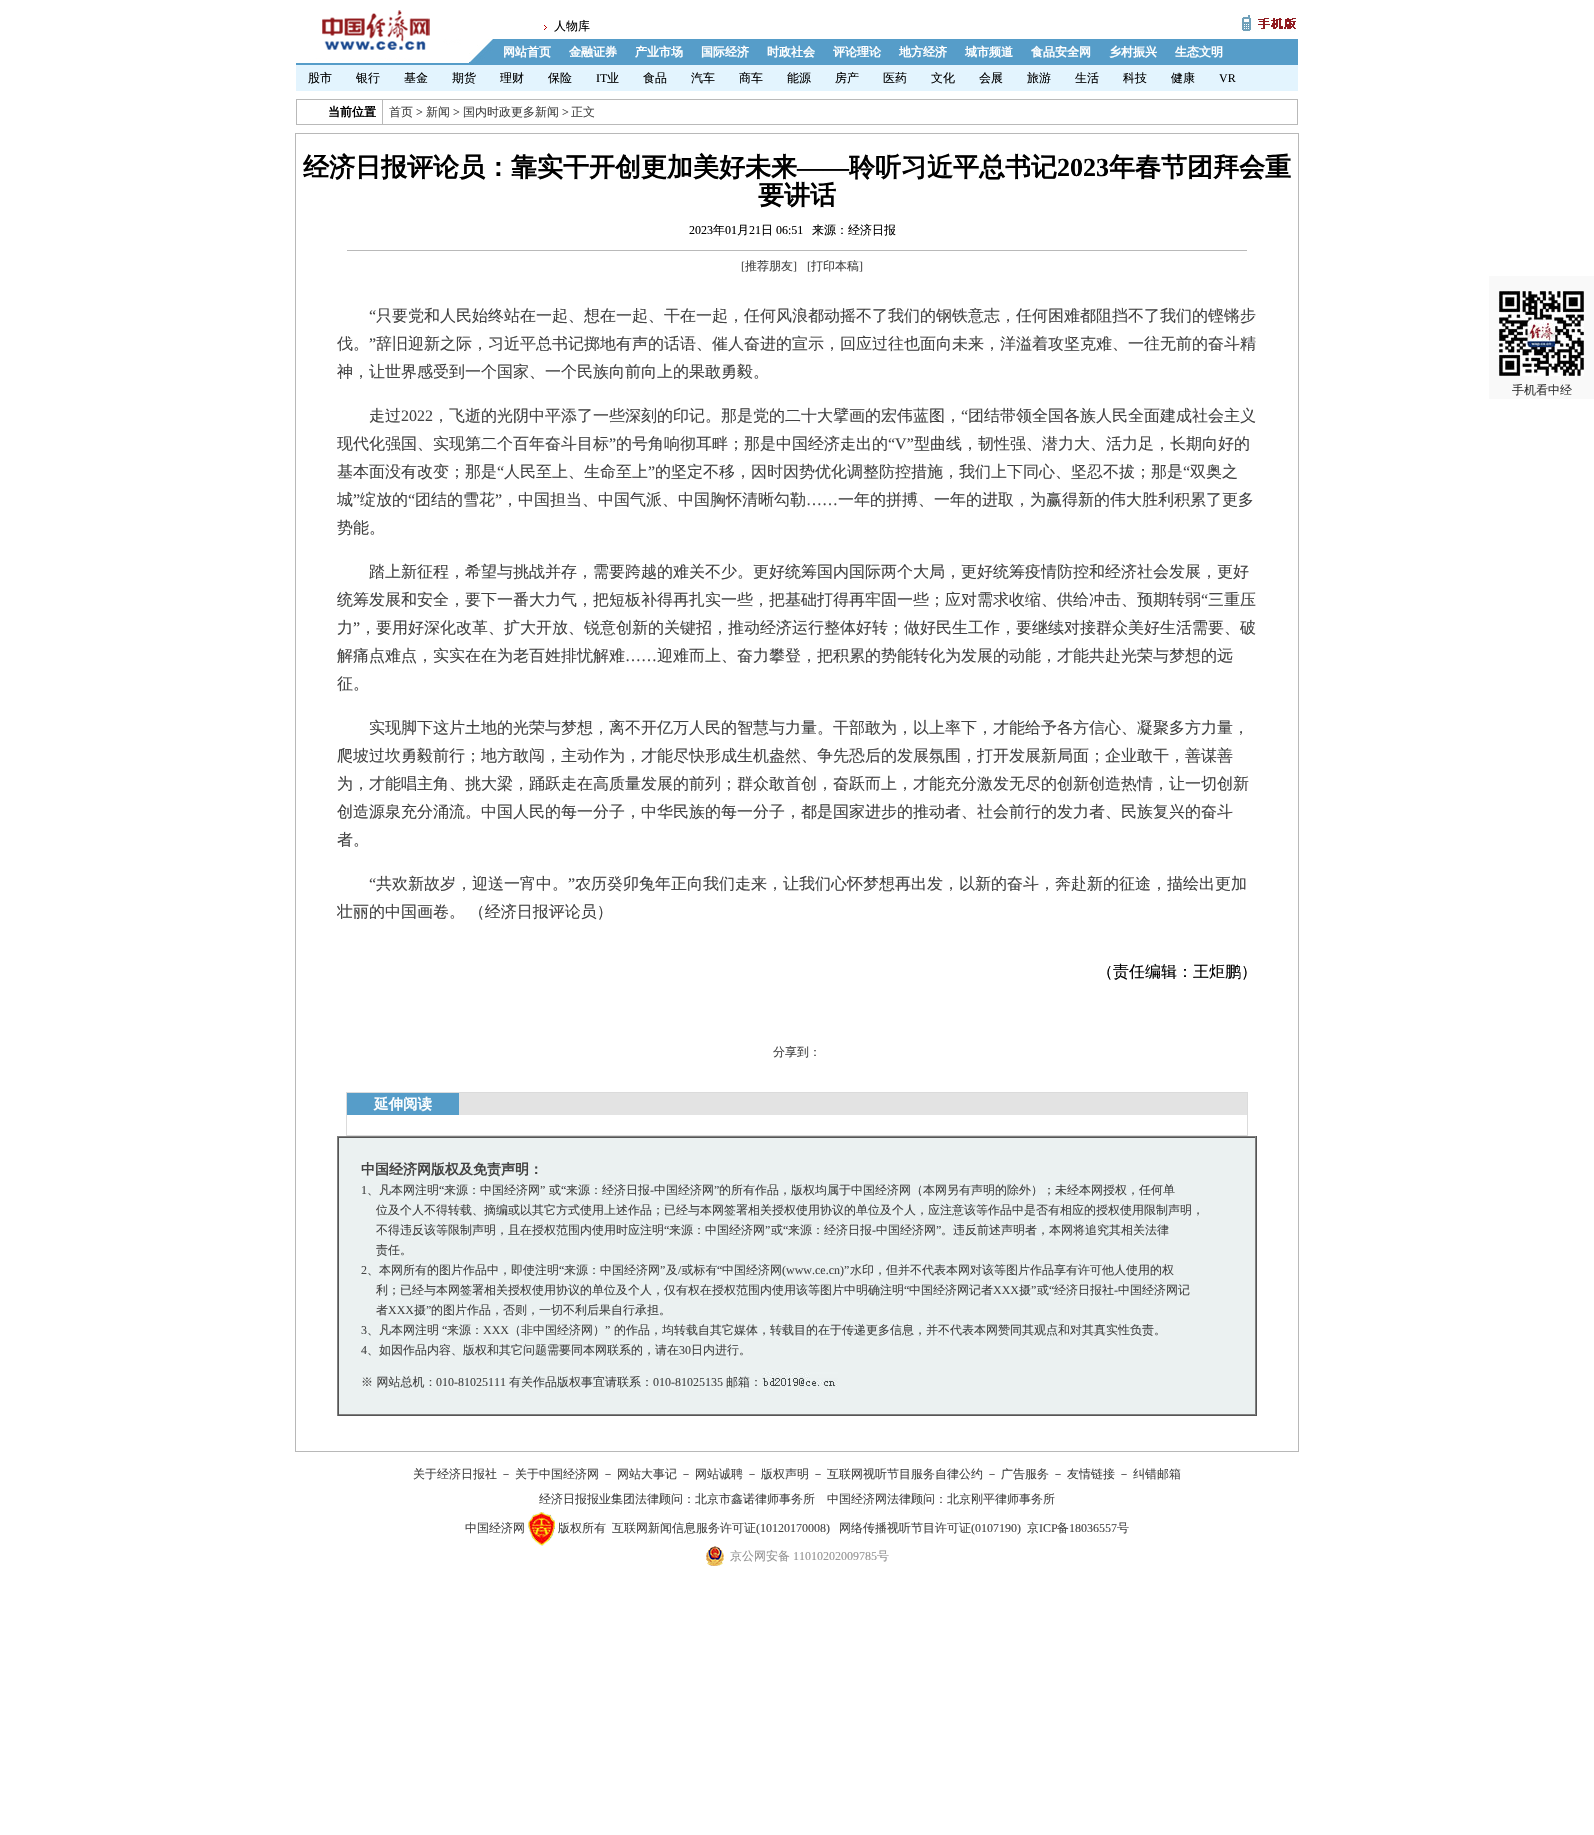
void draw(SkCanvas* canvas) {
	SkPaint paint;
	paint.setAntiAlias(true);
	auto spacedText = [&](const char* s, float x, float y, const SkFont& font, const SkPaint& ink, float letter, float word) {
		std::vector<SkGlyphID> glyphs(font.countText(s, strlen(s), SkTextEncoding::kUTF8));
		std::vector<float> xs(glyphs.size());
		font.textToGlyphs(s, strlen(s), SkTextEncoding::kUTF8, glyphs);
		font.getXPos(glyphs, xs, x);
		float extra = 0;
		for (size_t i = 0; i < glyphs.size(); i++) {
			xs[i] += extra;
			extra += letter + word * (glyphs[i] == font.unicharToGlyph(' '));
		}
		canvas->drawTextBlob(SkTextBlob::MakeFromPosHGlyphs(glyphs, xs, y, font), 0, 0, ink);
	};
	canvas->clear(0xffffffff);
	canvas->drawImageRect(SkImages::DeferredFromEncodedData(SkData::MakeFromFileName("img1.png")), SkRect::MakeXYWH(296, 39, 198, 26), SkSamplingOptions());
	canvas->drawImageRect(SkImages::DeferredFromEncodedData(SkData::MakeFromFileName("img2.png")), SkRect::MakeXYWH(322, 10, 108, 40), SkSamplingOptions());
	canvas->drawImageRect(SkImages::DeferredFromEncodedData(SkData::MakeFromFileName("img3.png")), SkRect::MakeXYWH(544, 25, 3, 5), SkSamplingOptions());
	SkFont f1(fontMgr->matchFamilyStyle("WenQuanYi Zen Hei", SkFontStyle(500, SkFontStyle::kNormal_Width, SkFontStyle::kUpright_Slant)), 12);
	f1.setSubpixel(true);
	paint.setColor(0xff000000);
	canvas->drawString("人物库", 554, 30, f1, paint);
	canvas->drawImageRect(SkImages::DeferredFromEncodedData(SkData::MakeFromFileName("img4.png")), SkRect::MakeXYWH(1240, 15, 56, 17), SkSamplingOptions());
	paint.setColor(0xff569dc9);
	canvas->drawRect(SkRect::MakeXYWH(494, 39, 804, 26), paint);
	SkFont f2(fontMgr->matchFamilyStyle("WenQuanYi Zen Hei", SkFontStyle::Bold()), 12);
	f2.setSubpixel(true);
	paint.setColor(0xffffffff);
	canvas->drawString("网站首页", 503, 56, f2, paint);
	canvas->drawString("金融证券", 569, 56, f2, paint);
	canvas->drawString("产业市场", 635, 56, f2, paint);
	canvas->drawString("国际经济", 701, 56, f2, paint);
	canvas->drawString("时政社会", 767, 56, f2, paint);
	canvas->drawString("评论理论", 833, 56, f2, paint);
	canvas->drawString("地方经济", 899, 56, f2, paint);
	canvas->drawString("城市频道", 965, 56, f2, paint);
	canvas->drawString("食品安全网", 1031, 56, f2, paint);
	canvas->drawString("乡村振兴", 1109, 56, f2, paint);
	canvas->drawString("生态文明", 1175, 56, f2, paint);
	paint.setColor(0xffe3f4fe);
	canvas->drawRect(SkRect::MakeXYWH(296, 65, 1002, 26), paint);
	paint.setColor(0xff000000);
	canvas->drawString("股市", 308, 82, f1, paint);
	canvas->drawString("银行", 356, 82, f1, paint);
	canvas->drawString("基金", 404, 82, f1, paint);
	canvas->drawString("期货", 452, 82, f1, paint);
	canvas->drawString("理财", 500, 82, f1, paint);
	canvas->drawString("保险", 548, 82, f1, paint);
	SkFont f3(fontMgr->matchFamilyStyle("Liberation Serif", SkFontStyle::Normal()), 12);
	f3.setSubpixel(true);
	canvas->drawString("IT", 596, 82, f3, paint);
	canvas->drawString("业", 607, 82, f1, paint);
	canvas->drawString("食品", 643, 82, f1, paint);
	canvas->drawString("汽车", 691, 82, f1, paint);
	canvas->drawString("商车", 739, 82, f1, paint);
	canvas->drawString("能源", 787, 82, f1, paint);
	canvas->drawString("房产", 835, 82, f1, paint);
	canvas->drawString("医药", 883, 82, f1, paint);
	canvas->drawString("文化", 931, 82, f1, paint);
	canvas->drawString("会展", 979, 82, f1, paint);
	canvas->drawString("旅游", 1027, 82, f1, paint);
	canvas->drawString("生活", 1075, 82, f1, paint);
	canvas->drawString("科技", 1123, 82, f1, paint);
	canvas->drawString("健康", 1171, 82, f1, paint);
	canvas->drawString("VR", 1219, 82, f3, paint);
	paint.setColor(0xffb9b9b9);
	canvas->drawRect(SkRect::MakeXYWH(296, 99, 1002, 26), paint);
	paint.setColor(0xffffffff);
	canvas->drawRect(SkRect::MakeXYWH(297, 100, 85, 24), paint);
	paint.setColor(0xff000000);
	canvas->drawString("当前位置", 328, 116, f2, paint);
	paint.setColor(0xffffffff);
	canvas->drawRect(SkRect::MakeXYWH(383, 100, 914, 24), paint);
	paint.setColor(0xff434343);
	canvas->drawString("首页", 389, 116, f1, paint);
	canvas->drawString(">", 416, 116, f3, paint);
	canvas->drawString("新闻", 426, 116, f1, paint);
	canvas->drawString(">", 453, 116, f3, paint);
	canvas->drawString("国内时政更多新闻", 463, 116, f1, paint);
	canvas->drawString(">", 562, 116, f3, paint);
	canvas->drawString("正文", 571, 116, f1, paint);
	paint.setStroke(true);
	paint.setStrokeWidth(1);
	paint.setColor(0xffb8b8b8);
	canvas->drawRect(SkRect::MakeXYWH(295.5, 133.5, 1003, 1318), paint);
	SkFont f4(fontMgr->matchFamilyStyle("WenQuanYi Zen Hei", SkFontStyle::Bold()), 26);
	f4.setSubpixel(true);
	paint.setStroke(false);
	paint.setColor(0xff000000);
	canvas->drawString("经济日报评论员：靠实干开创更加美好未来", 303, 176, f4, paint);
	SkFont f5(fontMgr->matchFamilyStyle("Liberation Serif", SkFontStyle::Bold()), 26);
	f5.setSubpixel(true);
	canvas->drawString("——", 797, 176, f5, paint);
	canvas->drawString("聆听习近平总书记", 849, 176, f4, paint);
	canvas->drawString("2023", 1057, 176, f5, paint);
	canvas->drawString("年春节团拜会重", 1109, 176, f4, paint);
	canvas->drawString("要讲话", 758, 204, f4, paint);
	canvas->drawString("2023", 689, 234, f3, paint);
	canvas->drawString("年", 713, 234, f1, paint);
	canvas->drawString("01", 725, 234, f3, paint);
	canvas->drawString("月", 737, 234, f1, paint);
	canvas->drawString("21", 749, 234, f3, paint);
	canvas->drawString("日", 761, 234, f1, paint);
	canvas->drawString("06:51", 776, 234, f3, paint);
	canvas->drawString("来源：经济日报", 812, 234, f1, paint);
	paint.setColor(0xffb9b9b9);
	canvas->drawRect(SkRect::MakeXYWH(347, 250, 900, 1), paint);
	paint.setColor(0xff434343);
	canvas->drawString("[", 741, 270, f3, paint);
	canvas->drawString("推荐朋友", 745, 270, f1, paint);
	canvas->drawString("]", 793, 270, f3, paint);
	canvas->drawString("[", 807, 270, f3, paint);
	canvas->drawString("打印本稿", 811, 270, f1, paint);
	canvas->drawString("]", 859, 270, f3, paint);
	SkFont f6(fontMgr->matchFamilyStyle("Liberation Serif", SkFontStyle::Normal()), 16);
	f6.setSubpixel(true);
	canvas->drawString("“", 369, 321, f6, paint);
	SkFont f7(fontMgr->matchFamilyStyle("WenQuanYi Zen Hei", SkFontStyle(500, SkFontStyle::kNormal_Width, SkFontStyle::kUpright_Slant)), 16);
	f7.setSubpixel(true);
	canvas->drawString("只要党和人民始终站在一起、想在一起、干在一起，任何风浪都动摇不了我们的钢铁意志，任何困难都阻挡不了我们的铿锵步", 376, 321, f7, paint);
	canvas->drawString("伐。", 337, 349, f7, paint);
	canvas->drawString("”", 369, 349, f6, paint);
	canvas->drawString("辞旧迎新之际，习近平总书记掷地有声的话语、催人奋进的宣示，回应过往也面向未来，洋溢着攻坚克难、一往无前的奋斗精", 376, 349, f7, paint);
	canvas->drawString("神，让世界感受到一个国家、一个民族向前向上的果敢勇毅。", 337, 377, f7, paint);
	canvas->drawString("走过", 369, 421, f7, paint);
	canvas->drawString("2022", 401, 421, f6, paint);
	canvas->drawString("，飞逝的光阴中平添了一些深刻的印记。那是党的二十大擘画的宏伟蓝图，", 433, 421, f7, paint);
	canvas->drawString("“", 961, 421, f6, paint);
	canvas->drawString("团结带领全国各族人民全面建成社会主义", 968, 421, f7, paint);
	canvas->drawString("现代化强国、实现第二个百年奋斗目标", 337, 449, f7, paint);
	canvas->drawString("”", 609, 449, f6, paint);
	canvas->drawString("的号角响彻耳畔；那是中国经济走出的", 616, 449, f7, paint);
	canvas->drawString("“V”", 888, 449, f6, paint);
	canvas->drawString("型曲线，韧性强、潜力大、活力足，长期向好的", 914, 449, f7, paint);
	canvas->drawString("基本面没有改变；那是", 337, 477, f7, paint);
	canvas->drawString("“", 497, 477, f6, paint);
	canvas->drawString("人民至上、生命至上", 504, 477, f7, paint);
	canvas->drawString("”", 648, 477, f6, paint);
	canvas->drawString("的坚定不移，因时因势优化调整防控措施，我们上下同心、坚忍不拔；那是", 655, 477, f7, paint);
	canvas->drawString("“", 1183, 477, f6, paint);
	canvas->drawString("双奥之", 1190, 477, f7, paint);
	canvas->drawString("城", 337, 505, f7, paint);
	canvas->drawString("”", 353, 505, f6, paint);
	canvas->drawString("绽放的", 360, 505, f7, paint);
	canvas->drawString("“", 408, 505, f6, paint);
	canvas->drawString("团结的雪花", 415, 505, f7, paint);
	canvas->drawString("”", 495, 505, f6, paint);
	canvas->drawString("，中国担当、中国气派、中国胸怀清晰勾勒", 502, 505, f7, paint);
	canvas->drawString("一年的拼搏、一年的进取，为赢得新的伟大胜利积累了更多", 838, 505, f7, paint);
	canvas->drawString("……", 806, 505, f6, paint);
	canvas->drawString("势能。", 337, 533, f7, paint);
	canvas->drawString("踏上新征程，希望与挑战并存，需要跨越的难关不少。更好统筹国内国际两个大局，更好统筹疫情防控和经济社会发展，更好", 369, 577, f7, paint);
	canvas->drawString("统筹发展和安全，要下一番大力气，把短板补得再扎实一些，把基础打得再牢固一些；应对需求收缩、供给冲击、预期转弱", 337, 605, f7, paint);
	canvas->drawString("“", 1201, 605, f6, paint);
	canvas->drawString("三重压", 1208, 605, f7, paint);
	canvas->drawString("力", 337, 633, f7, paint);
	canvas->drawString("”", 353, 633, f6, paint);
	canvas->drawString("，要用好深化改革、扩大开放、锐意创新的关键招，推动经济运行整体好转；做好民生工作，要继续对接群众美好生活需要、破", 360, 633, f7, paint);
	canvas->drawString("解痛点难点，实实在在为老百姓排忧解难", 337, 661, f7, paint);
	canvas->drawString("……", 625, 661, f6, paint);
	canvas->drawString("迎难而上、奋力攀登，把积累的势能转化为发展的动能，才能共赴光荣与梦想的远", 657, 661, f7, paint);
	canvas->drawString("征。", 337, 689, f7, paint);
	canvas->drawString("实现脚下这片土地的光荣与梦想，离不开亿万人民的智慧与力量。干部敢为，以上率下，才能给予各方信心、凝聚多方力量，", 369, 733, f7, paint);
	canvas->drawString("爬坡过坎勇毅前行；地方敢闯，主动作为，才能尽快形成生机盎然、争先恐后的发展氛围，打开发展新局面；企业敢干，善谋善", 337, 761, f7, paint);
	canvas->drawString("为，才能唱主角、挑大梁，踊跃走在高质量发展的前列；群众敢首创，奋跃而上，才能充分激发无尽的创新创造热情，让一切创新", 337, 789, f7, paint);
	canvas->drawString("创造源泉充分涌流。中国人民的每一分子，中华民族的每一分子，都是国家进步的推动者、社会前行的发力者、民族复兴的奋斗", 337, 817, f7, paint);
	canvas->drawString("者。", 337, 845, f7, paint);
	canvas->drawString("“", 369, 889, f6, paint);
	canvas->drawString("共欢新故岁，迎送一宵中。", 376, 889, f7, paint);
	canvas->drawString("”", 568, 889, f6, paint);
	canvas->drawString("农历癸卯兔年正向我们走来，让我们心怀梦想再出发，以新的奋斗，奔赴新的征途，描绘出更加", 575, 889, f7, paint);
	spacedText("壮丽的中国画卷。 （经济日报评论员）", 337, 917, f7, paint, 0, -1);
	paint.setColor(0xff000000);
	canvas->drawString("（责任编辑：王炬鹏）", 1097, 977, f7, paint);
	paint.setColor(0xff434343);
	canvas->drawString("分享到：", 773, 1056, f1, paint);
	paint.setStroke(true);
	paint.setColor(0xffdbdbdb);
	canvas->drawRect(SkRect::MakeXYWH(346.5, 1092.5, 901, 43), paint);
	paint.setStroke(false);
	paint.setColor(0xffe3e3e3);
	canvas->drawRect(SkRect::MakeXYWH(459, 1093, 788, 22), paint);
	paint.setColor(0xff569dc9);
	canvas->drawRect(SkRect::MakeXYWH(347, 1093, 112, 22), paint);
	SkFont f8(fontMgr->matchFamilyStyle("WenQuanYi Zen Hei", SkFontStyle::Bold()), 14.5);
	f8.setSubpixel(true);
	paint.setColor(0xffffffff);
	canvas->drawString("延伸阅读", 374, 1109, f8, paint);
	paint.setColor(0xffebf1f1);
	canvas->drawRect(SkRect::MakeXYWH(339, 1138, 916, 276), paint);
	paint.setColor(0xff808080);
	canvas->drawRect(SkRect::MakeXYWH(337, 1136, 920, 1), paint);
	paint.setColor(0xff555555);
	canvas->drawRect(SkRect::MakeXYWH(1256, 1136, 1, 280), paint);
	canvas->drawRect(SkRect::MakeXYWH(337, 1415, 920, 1), paint);
	paint.setColor(0xff808080);
	canvas->drawRect(SkRect::MakeXYWH(337, 1136, 1, 280), paint);
	paint.setColor(0xff555555);
	canvas->drawRect(SkRect::MakeXYWH(338, 1137, 918, 1), paint);
	paint.setColor(0xff808080);
	canvas->drawRect(SkRect::MakeXYWH(1255, 1137, 1, 278), paint);
	canvas->drawRect(SkRect::MakeXYWH(338, 1414, 918, 1), paint);
	paint.setColor(0xff555555);
	canvas->drawRect(SkRect::MakeXYWH(338, 1137, 1, 278), paint);
	SkFont f9(fontMgr->matchFamilyStyle("WenQuanYi Zen Hei", SkFontStyle::Bold()), 14);
	f9.setSubpixel(true);
	paint.setColor(0xff434343);
	canvas->drawString("中国经济网版权及免责声明：", 361, 1174, f9, paint);
	canvas->drawString("1", 361, 1194, f3, paint);
	canvas->drawString("、凡本网注明", 367, 1194, f1, paint);
	canvas->drawString("“", 439, 1194, f3, paint);
	canvas->drawString("来源：中国经济网", 444, 1194, f1, paint);
	canvas->drawString("”", 540, 1194, f3, paint);
	canvas->drawString("或", 549, 1194, f1, paint);
	canvas->drawString("“", 561, 1194, f3, paint);
	canvas->drawString("来源：经济日报", 566, 1194, f1, paint);
	canvas->drawString("中国经济网", 654, 1194, f1, paint);
	canvas->drawString("”", 714, 1194, f3, paint);
	canvas->drawString("的所有作品，版权均属于中国经济网（本网另有声明的除外）；未经本网授权，任何单", 719, 1194, f1, paint);
	canvas->drawString("-", 650, 1194, f3, paint);
	canvas->drawString("位及个人不得转载、摘编或以其它方式使用上述作品；已经与本网签署相关授权使用协议的单位及个人，应注意该等作品中是否有相应的授权使用限制声明，", 376, 1214, f1, paint);
	canvas->drawString("不得违反该等限制声明，且在授权范围内使用时应注明", 376, 1234, f1, paint);
	canvas->drawString("“", 664, 1234, f3, paint);
	canvas->drawString("来源：中国经济网", 669, 1234, f1, paint);
	canvas->drawString("”", 765, 1234, f3, paint);
	canvas->drawString("或", 771, 1234, f1, paint);
	canvas->drawString("“", 783, 1234, f3, paint);
	canvas->drawString("来源：经济日报", 788, 1234, f1, paint);
	canvas->drawString("中国经济网", 876, 1234, f1, paint);
	canvas->drawString("”", 936, 1234, f3, paint);
	canvas->drawString("。违反前述声明者，本网将追究其相关法律", 941, 1234, f1, paint);
	canvas->drawString("-", 872, 1234, f3, paint);
	canvas->drawString("责任。", 376, 1254, f1, paint);
	canvas->drawString("2", 361, 1274, f3, paint);
	canvas->drawString("、本网所有的图片作品中，即使注明", 367, 1274, f1, paint);
	canvas->drawString("“", 559, 1274, f3, paint);
	canvas->drawString("来源：中国经济网", 564, 1274, f1, paint);
	canvas->drawString("”", 660, 1274, f3, paint);
	canvas->drawString("及 或标有", 666, 1274, f1, paint);
	canvas->drawString("中国经济网", 722, 1274, f1, paint);
	canvas->drawString("(www.ce.cn)”", 782, 1274, f3, paint);
	canvas->drawString("水印，但并不代表本网对该等图片作品享有许可他人使用的权", 850, 1274, f1, paint);
	canvas->drawString("/", 678, 1274, f3, paint);
	canvas->drawString("“", 717, 1274, f3, paint);
	canvas->drawString("利；已经与本网签署相关授权使用协议的单位及个人，仅有权在授权范围内使用该等图片中明确注明", 376, 1294, f1, paint);
	canvas->drawString("“", 904, 1294, f3, paint);
	canvas->drawString("中国经济网记者", 909, 1294, f1, paint);
	canvas->drawString("XXX", 993, 1294, f3, paint);
	canvas->drawString("摄", 1019, 1294, f1, paint);
	canvas->drawString("”", 1031, 1294, f3, paint);
	canvas->drawString("或", 1037, 1294, f1, paint);
	canvas->drawString("“", 1049, 1294, f3, paint);
	canvas->drawString("经济日报社", 1054, 1294, f1, paint);
	canvas->drawString("中国经济网记", 1118, 1294, f1, paint);
	canvas->drawString("-", 1114, 1294, f3, paint);
	canvas->drawString("者", 376, 1314, f1, paint);
	canvas->drawString("XXX", 388, 1314, f3, paint);
	canvas->drawString("摄", 414, 1314, f1, paint);
	canvas->drawString("”", 426, 1314, f3, paint);
	canvas->drawString("的图片作品，否则，一切不利后果自行承担。", 431, 1314, f1, paint);
	canvas->drawString("3", 361, 1334, f3, paint);
	canvas->drawString("、凡本网注明", 367, 1334, f1, paint);
	canvas->drawString("“", 442, 1334, f3, paint);
	canvas->drawString("来源：", 447, 1334, f1, paint);
	canvas->drawString("XXX", 483, 1334, f3, paint);
	canvas->drawString("（非中国经济网）", 509, 1334, f1, paint);
	canvas->drawString("”", 605, 1334, f3, paint);
	canvas->drawString("的作品，均转载自其它媒体，转载目的在于传递更多信息，并不代表本网赞同其观点和对其真实性负责。", 614, 1334, f1, paint);
	canvas->drawString("4", 361, 1354, f3, paint);
	canvas->drawString("、如因作品内容、版权和其它问题需要同本网联系的，请在", 367, 1354, f1, paint);
	canvas->drawString("30", 679, 1354, f3, paint);
	canvas->drawString("日内进行。", 691, 1354, f1, paint);
	canvas->drawString("※ 网站总机：", 361, 1386, f1, paint);
	canvas->drawString("010-81025111", 436, 1386, f3, paint);
	canvas->drawString("有关作品版权事宜请联系：", 509, 1386, f1, paint);
	canvas->drawString("010-81025135", 653, 1386, f3, paint);
	canvas->drawString("邮箱：", 726, 1386, f1, paint);
	canvas->drawImageRect(SkImages::DeferredFromEncodedData(SkData::MakeFromFileName("img5.png")), SkRect::MakeXYWH(762, 1372, 76, 16), SkSamplingOptions());
	paint.setColor(0xfff9f9f9);
	canvas->drawRect(SkRect::MakeXYWH(1489, 276, 105, 123), paint);
	canvas->drawImageRect(SkImages::DeferredFromEncodedData(SkData::MakeFromFileName("img6.png")), SkRect::MakeXYWH(1499, 291, 85, 85), SkSamplingOptions());
	paint.setColor(0xff333333);
	canvas->drawString("手机看中经", 1512, 394, f1, paint);
	paint.setColor(0xff434343);
	canvas->drawString("关于经济日报社", 413, 1478, f1, paint);
	canvas->drawString("－", 500, 1478, f1, paint);
	canvas->drawString("关于中国经济网", 515, 1478, f1, paint);
	canvas->drawString("－", 602, 1478, f1, paint);
	canvas->drawString("网站大事记", 617, 1478, f1, paint);
	canvas->drawString("－", 680, 1478, f1, paint);
	canvas->drawString("网站诚聘", 695, 1478, f1, paint);
	canvas->drawString("－", 746, 1478, f1, paint);
	canvas->drawString("版权声明", 761, 1478, f1, paint);
	canvas->drawString("－", 812, 1478, f1, paint);
	canvas->drawString("互联网视听节目服务自律公约", 827, 1478, f1, paint);
	canvas->drawString("－", 986, 1478, f1, paint);
	canvas->drawString("广告服务", 1001, 1478, f1, paint);
	canvas->drawString("－", 1052, 1478, f1, paint);
	canvas->drawString("友情链接", 1067, 1478, f1, paint);
	canvas->drawString("－", 1118, 1478, f1, paint);
	canvas->drawString("纠错邮箱", 1133, 1478, f1, paint);
	canvas->drawString("经济日报报业集团法律顾问：北京市鑫诺律师事务所", 539, 1503, f1, paint);
	canvas->drawString("中国经济网法律顾问：北京刚平律师事务所", 827, 1503, f1, paint);
	canvas->drawString("中国经济网", 465, 1532, f1, paint);
	canvas->drawImageRect(SkImages::DeferredFromEncodedData(SkData::MakeFromFileName("img7.png")), SkRect::MakeXYWH(528, 1512, 27, 34), SkSamplingOptions());
	canvas->drawString("版权所有", 558, 1532, f1, paint);
	canvas->drawString("互联网新闻信息服务许可证", 612, 1532, f1, paint);
	canvas->drawString("(10120170008)", 756, 1532, f3, paint);
	canvas->drawString("网络传播视听节目许可证", 839, 1532, f1, paint);
	canvas->drawString("(0107190)", 971, 1532, f3, paint);
	canvas->drawString("京", 1027, 1532, f1, paint);
	canvas->drawString("ICP", 1039, 1532, f3, paint);
	canvas->drawString("备", 1057, 1532, f1, paint);
	canvas->drawString("18036557", 1069, 1532, f3, paint);
	canvas->drawString("号", 1117, 1532, f1, paint);
	canvas->drawImageRect(SkImages::DeferredFromEncodedData(SkData::MakeFromFileName("img8.png")), SkRect::MakeXYWH(706, 1546, 18, 20), SkSamplingOptions());
	paint.setColor(0xff939393);
	canvas->drawString("京公网安备", 730, 1560, f1, paint);
	canvas->drawString("11010202009785", 793, 1560, f3, paint);
	canvas->drawString("号", 877, 1560, f1, paint);
}
